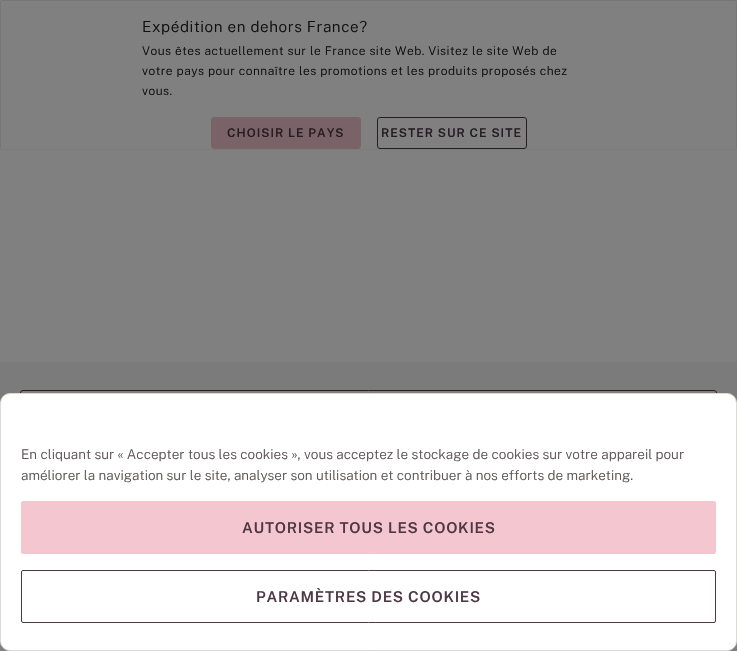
void draw(SkCanvas* canvas) {
	SkPaint paint;
	paint.setAntiAlias(true);
	auto spacedText = [&](const char* s, float x, float y, const SkFont& font, const SkPaint& ink, float letter, float word) {
		std::vector<SkGlyphID> glyphs(font.countText(s, strlen(s), SkTextEncoding::kUTF8));
		std::vector<float> xs(glyphs.size());
		font.textToGlyphs(s, strlen(s), SkTextEncoding::kUTF8, glyphs);
		font.getXPos(glyphs, xs, x);
		float extra = 0;
		for (size_t i = 0; i < glyphs.size(); i++) {
			xs[i] += extra;
			extra += letter + word * (glyphs[i] == font.unicharToGlyph(' '));
		}
		canvas->drawTextBlob(SkTextBlob::MakeFromPosHGlyphs(glyphs, xs, y, font), 0, 0, ink);
	};
	auto svgPath = [&](const char* data, bool evenOdd = false) {
		SkPath result = *SkParsePath::FromSVGString(data);
		if (evenOdd) result.setFillType(SkPathFillType::kEvenOdd);
		return result;
	};
	canvas->clear(0xff808080);
	paint.setStroke(true);
	paint.setStrokeWidth(1);
	paint.setColor(0xff7b7b7b);
	canvas->drawPath(svgPath("M736 149L735 149.5H2L1 149"), paint);
	paint.setColor(0xff787675);
	canvas->drawPath(svgPath("M1 149L.5 148V2L1 1L2 .5H735L736 1L736.5 2V148L736 149"), paint);
	SkFont f1(fontMgr->matchFamilyStyle("Public Sans", SkFontStyle(300, SkFontStyle::kNormal_Width, SkFontStyle::kUpright_Slant)), 15.25);
	f1.setSubpixel(true);
	paint.setStroke(false);
	paint.setColor(0xff110f0f);
	spacedText("Expédition en dehors France?", 142, 32, f1, paint, 0.6, 0);
	SkFont f2(fontMgr->matchFamilyStyle("Public Sans", SkFontStyle(300, SkFontStyle::kNormal_Width, SkFontStyle::kUpright_Slant)), 12);
	f2.setSubpixel(true);
	spacedText("Vous êtes actuellement sur le France site Web. Visitez le site Web de", 142, 55, f2, paint, 0.48, 0);
	spacedText("votre pays pour connaître les promotions et les produits proposés chez", 142, 75, f2, paint, 0.48, 0);
	spacedText("vous.", 142, 95, f2, paint, 0.48, 0);
	paint.setColor(0xff7a6368);
	canvas->drawRoundRect(SkRect::MakeXYWH(211.5, 117.5, 149, 31), 2.5, 2.5, paint);
	paint.setStroke(true);
	canvas->drawRoundRect(SkRect::MakeXYWH(211.5, 117.5, 149, 31), 2.5, 2.5, paint);
	SkFont f3(fontMgr->matchFamilyStyle("Public Sans", SkFontStyle(600, SkFontStyle::kNormal_Width, SkFontStyle::kUpright_Slant)), 12);
	f3.setSubpixel(true);
	paint.setStroke(false);
	paint.setColor(0xff271c22);
	spacedText("CHOISIR LE PAYS", 227, 137, f3, paint, 1, 0);
	paint.setStroke(true);
	canvas->drawRoundRect(SkRect::MakeXYWH(377.5, 117.5, 149, 31), 2.5, 2.5, paint);
	paint.setStroke(false);
	spacedText("RESTER SUR CE SITE", 381, 137, f3, paint, 1, 0);
	paint.setColor(0xff7b7b7b);
	canvas->drawRect(SkRect::MakeXYWH(0, 362, 737, 41), paint);
	paint.setColor(0xff808080);
	canvas->drawRoundRect(SkRect::MakeXYWH(20.5, 390.5, 696, 53), 2.5, 2.5, paint);
	paint.setStroke(true);
	paint.setColor(0xff271c22);
	canvas->drawRoundRect(SkRect::MakeXYWH(20.5, 390.5, 696, 53), 2.5, 2.5, paint);
	paint.setStroke(false);
	paint.setColor(0xffffffff);
	canvas->drawRoundRect(SkRect::MakeXYWH(0.5, 393.5, 736, 257), 9.5, 9.5, paint);
	paint.setStroke(true);
	paint.setColor(0xffe0dad5);
	canvas->drawRoundRect(SkRect::MakeXYWH(0.5, 393.5, 736, 257), 9.5, 9.5, paint);
	SkFont f4(fontMgr->matchFamilyStyle("Public Sans", SkFontStyle(300, SkFontStyle::kNormal_Width, SkFontStyle::kUpright_Slant)), 13.5);
	f4.setSubpixel(true);
	paint.setStroke(false);
	paint.setColor(0xff605858);
	canvas->drawString("En cliquant sur « Accepter tous les cookies », vous acceptez le stockage de cookies sur votre appareil pour", 21, 459, f4, paint);
	canvas->drawString("améliorer la navigation sur le site, analyser son utilisation et contribuer à nos efforts de marketing.", 21, 480, f4, paint);
	paint.setColor(0xfff4c6cf);
	canvas->drawRoundRect(SkRect::MakeXYWH(21.5, 501.5, 694, 52), 1.5, 1.5, paint);
	paint.setStroke(true);
	canvas->drawRoundRect(SkRect::MakeXYWH(21.5, 501.5, 694, 52), 1.5, 1.5, paint);
	SkFont f5(fontMgr->matchFamilyStyle("Public Sans", SkFontStyle(600, SkFontStyle::kNormal_Width, SkFontStyle::kUpright_Slant)), 15);
	f5.setSubpixel(true);
	paint.setStroke(false);
	paint.setColor(0xff4e3844);
	spacedText("AUTORISER TOUS LES COOKIES", 242, 533, f5, paint, 0.75, 0);
	paint.setStroke(true);
	canvas->drawRoundRect(SkRect::MakeXYWH(21.5, 570.5, 694, 52), 1.5, 1.5, paint);
	paint.setStroke(false);
	spacedText("PARAMÈTRES DES COOKIES", 256, 602, f5, paint, 0.75, 0);
}
